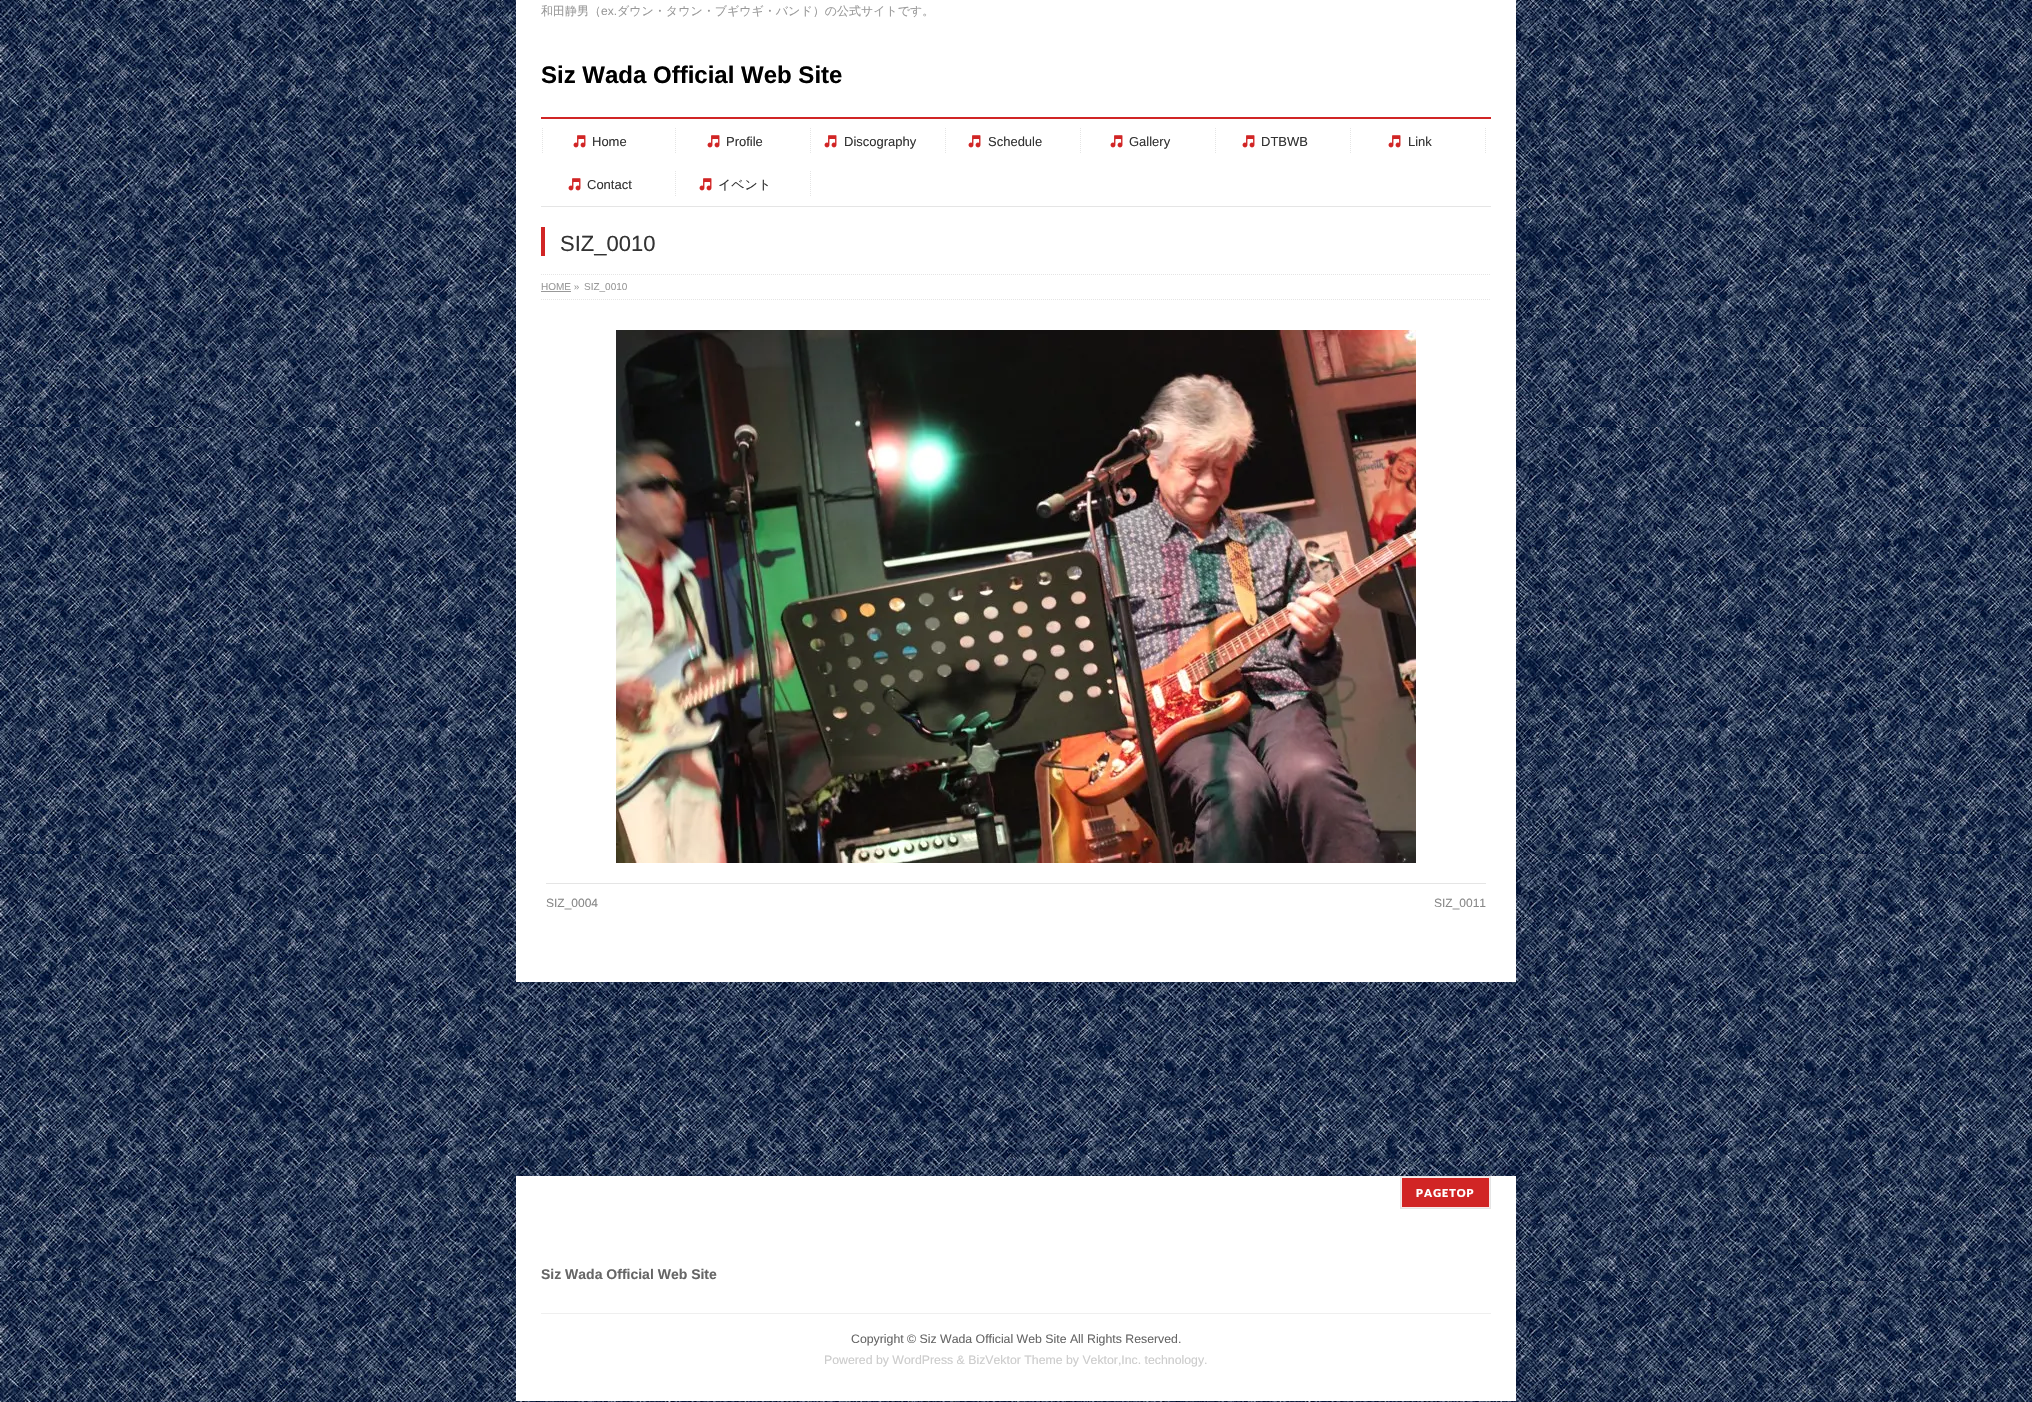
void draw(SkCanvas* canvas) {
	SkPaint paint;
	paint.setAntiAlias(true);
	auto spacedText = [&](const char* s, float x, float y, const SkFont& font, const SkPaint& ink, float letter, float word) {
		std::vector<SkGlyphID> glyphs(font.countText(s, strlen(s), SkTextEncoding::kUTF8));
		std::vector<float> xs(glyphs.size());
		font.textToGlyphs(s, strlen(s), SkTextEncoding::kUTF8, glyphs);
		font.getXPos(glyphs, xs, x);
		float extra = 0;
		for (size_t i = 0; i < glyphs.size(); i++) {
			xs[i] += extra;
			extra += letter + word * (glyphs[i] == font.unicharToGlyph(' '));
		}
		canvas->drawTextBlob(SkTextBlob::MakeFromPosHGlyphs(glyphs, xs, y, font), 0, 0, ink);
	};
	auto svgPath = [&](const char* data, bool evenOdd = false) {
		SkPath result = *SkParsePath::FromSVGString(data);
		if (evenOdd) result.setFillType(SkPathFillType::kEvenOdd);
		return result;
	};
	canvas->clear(0xffffffff);
	canvas->drawImageRect(SkImages::DeferredFromEncodedData(SkData::MakeFromFileName("img1.png")), SkRect::MakeXYWH(0, 0, 2032, 1402), SkSamplingOptions());
	paint.setColor(0xffffffff);
	canvas->drawRect(SkRect::MakeXYWH(516, 0, 1000, 207), paint);
	SkFont f1(fontMgr->matchFamilyStyle("WenQuanYi Zen Hei", SkFontStyle(500, SkFontStyle::kNormal_Width, SkFontStyle::kUpright_Slant)), 12);
	f1.setSubpixel(true);
	paint.setColor(0xff999999);
	canvas->drawString("和田静男（", 541, 15, f1, paint);
	SkFont f2(fontMgr->matchFamilyStyle("Liberation Sans", SkFontStyle::Normal()), 12);
	f2.setSubpixel(true);
	canvas->drawString("ex.", 601, 15, f2, paint);
	canvas->drawString("ダウン・タウン・ブギウギ・バンド）の公式サイトです。", 617, 15, f1, paint);
	SkFont f3(fontMgr->matchFamilyStyle("Liberation Sans", SkFontStyle::Bold()), 24);
	f3.setSubpixel(true);
	paint.setColor(0xff000000);
	canvas->drawString("Siz Wada Official Web Site", 541, 83, f3, paint);
	paint.setColor(0xffd12525);
	canvas->drawRect(SkRect::MakeXYWH(541, 117, 950, 2), paint);
	paint.setColor(0xffe5e5e5);
	canvas->drawRect(SkRect::MakeXYWH(541, 206, 950, 1), paint);
	paint.setStroke(true);
	paint.setStrokeWidth(1);
	paint.setPathEffect(SkDashPathEffect::Make({{1, 1}}, 0));
	canvas->drawPath(svgPath("M542.5 128V154"), paint);
	paint.setPathEffect(nullptr);
	canvas->drawImageRect(SkImages::DeferredFromEncodedData(SkData::MakeFromFileName("img2.png")), SkRect::MakeXYWH(573, 135, 13, 13), SkSamplingOptions());
	SkFont f4(fontMgr->matchFamilyStyle("Liberation Sans", SkFontStyle::Normal()), 13);
	f4.setSubpixel(true);
	paint.setStroke(false);
	paint.setColor(0xff333333);
	canvas->drawString("Home", 592, 146, f4, paint);
	paint.setStroke(true);
	paint.setColor(0xffe5e5e5);
	paint.setPathEffect(SkDashPathEffect::Make({{1, 1}}, 0));
	canvas->drawPath(svgPath("M675.5 128V154"), paint);
	paint.setPathEffect(nullptr);
	canvas->drawImageRect(SkImages::DeferredFromEncodedData(SkData::MakeFromFileName("img2.png")), SkRect::MakeXYWH(707, 135, 13, 13), SkSamplingOptions());
	paint.setStroke(false);
	paint.setColor(0xff333333);
	canvas->drawString("Profile", 726, 146, f4, paint);
	paint.setStroke(true);
	paint.setColor(0xffe5e5e5);
	paint.setPathEffect(SkDashPathEffect::Make({{1, 1}}, 0));
	canvas->drawPath(svgPath("M810.5 128V154"), paint);
	paint.setPathEffect(nullptr);
	canvas->drawImageRect(SkImages::DeferredFromEncodedData(SkData::MakeFromFileName("img2.png")), SkRect::MakeXYWH(824, 135, 13, 13), SkSamplingOptions());
	paint.setStroke(false);
	paint.setColor(0xff333333);
	canvas->drawString("Discography", 844, 146, f4, paint);
	paint.setStroke(true);
	paint.setColor(0xffe5e5e5);
	paint.setPathEffect(SkDashPathEffect::Make({{1, 1}}, 0));
	canvas->drawPath(svgPath("M945.5 128V154"), paint);
	paint.setPathEffect(nullptr);
	canvas->drawImageRect(SkImages::DeferredFromEncodedData(SkData::MakeFromFileName("img2.png")), SkRect::MakeXYWH(968, 135, 13, 13), SkSamplingOptions());
	paint.setStroke(false);
	paint.setColor(0xff333333);
	canvas->drawString("Schedule", 988, 146, f4, paint);
	paint.setStroke(true);
	paint.setColor(0xffe5e5e5);
	paint.setPathEffect(SkDashPathEffect::Make({{1, 1}}, 0));
	canvas->drawPath(svgPath("M1080.5 128V154"), paint);
	paint.setPathEffect(nullptr);
	canvas->drawImageRect(SkImages::DeferredFromEncodedData(SkData::MakeFromFileName("img2.png")), SkRect::MakeXYWH(1110, 135, 13, 13), SkSamplingOptions());
	paint.setStroke(false);
	paint.setColor(0xff333333);
	canvas->drawString("Gallery", 1129, 146, f4, paint);
	paint.setStroke(true);
	paint.setColor(0xffe5e5e5);
	paint.setPathEffect(SkDashPathEffect::Make({{1, 1}}, 0));
	canvas->drawPath(svgPath("M1215.5 128V154"), paint);
	paint.setPathEffect(nullptr);
	canvas->drawImageRect(SkImages::DeferredFromEncodedData(SkData::MakeFromFileName("img2.png")), SkRect::MakeXYWH(1242, 135, 13, 13), SkSamplingOptions());
	paint.setStroke(false);
	paint.setColor(0xff333333);
	canvas->drawString("DTBWB", 1261, 146, f4, paint);
	paint.setStroke(true);
	paint.setColor(0xffe5e5e5);
	paint.setPathEffect(SkDashPathEffect::Make({{1, 1}}, 0));
	canvas->drawPath(svgPath("M1350.5 128V154"), paint);
	paint.setPathEffect(nullptr);
	canvas->drawImageRect(SkImages::DeferredFromEncodedData(SkData::MakeFromFileName("img2.png")), SkRect::MakeXYWH(1388, 135, 13, 13), SkSamplingOptions());
	paint.setStroke(false);
	paint.setColor(0xff333333);
	canvas->drawString("Link", 1408, 146, f4, paint);
	paint.setStroke(true);
	paint.setColor(0xffe5e5e5);
	paint.setPathEffect(SkDashPathEffect::Make({{1, 1}}, 0));
	canvas->drawPath(svgPath("M1485.5 128V154"), paint);
	paint.setPathEffect(nullptr);
	canvas->drawImageRect(SkImages::DeferredFromEncodedData(SkData::MakeFromFileName("img2.png")), SkRect::MakeXYWH(568, 178, 13, 13), SkSamplingOptions());
	paint.setStroke(false);
	paint.setColor(0xff333333);
	canvas->drawString("Contact", 587, 189, f4, paint);
	paint.setStroke(true);
	paint.setColor(0xffe5e5e5);
	paint.setPathEffect(SkDashPathEffect::Make({{1, 1}}, 0));
	canvas->drawPath(svgPath("M675.5 171V197"), paint);
	paint.setPathEffect(nullptr);
	canvas->drawImageRect(SkImages::DeferredFromEncodedData(SkData::MakeFromFileName("img2.png")), SkRect::MakeXYWH(699, 178, 13, 13), SkSamplingOptions());
	SkFont f5(fontMgr->matchFamilyStyle("WenQuanYi Zen Hei", SkFontStyle(500, SkFontStyle::kNormal_Width, SkFontStyle::kUpright_Slant)), 13);
	f5.setSubpixel(true);
	paint.setStroke(false);
	paint.setColor(0xff333333);
	canvas->drawString("イベント", 718, 189, f5, paint);
	paint.setStroke(true);
	paint.setColor(0xffe5e5e5);
	paint.setPathEffect(SkDashPathEffect::Make({{1, 1}}, 0));
	canvas->drawPath(svgPath("M810.5 171V197"), paint);
	paint.setPathEffect(nullptr);
	paint.setStroke(false);
	paint.setColor(0xffffffff);
	canvas->drawRect(SkRect::MakeXYWH(516, 207, 1000, 67), paint);
	paint.setColor(0xffd12525);
	canvas->drawRect(SkRect::MakeXYWH(541, 227, 4, 29), paint);
	SkFont f6(fontMgr->matchFamilyStyle("Liberation Sans", SkFontStyle::Normal()), 22);
	f6.setSubpixel(true);
	paint.setColor(0xff333333);
	canvas->drawString("SIZ_0010", 560, 251, f6, paint);
	paint.setColor(0xffffffff);
	canvas->drawRect(SkRect::MakeXYWH(516, 274, 1000, 708), paint);
	paint.setStroke(true);
	paint.setColor(0xffe5e5e5);
	paint.setPathEffect(SkDashPathEffect::Make({{1, 1}}, 0));
	canvas->drawPath(svgPath("M541 274.5H1491"), paint);
	paint.setPathEffect(nullptr);
	paint.setPathEffect(SkDashPathEffect::Make({{1, 1}}, 0));
	canvas->drawPath(svgPath("M541 299.5H1491"), paint);
	paint.setPathEffect(nullptr);
	SkFont f7(fontMgr->matchFamilyStyle("Liberation Sans", SkFontStyle::Normal()), 10);
	f7.setSubpixel(true);
	paint.setStroke(false);
	paint.setColor(0xff999999);
	canvas->drawString("HOME »", 541, 290, f7, paint);
	canvas->drawRect(SkRect::MakeXYWH(541, 291, 30, 1), paint);
	canvas->drawString("SIZ_0010", 584, 290, f7, paint);
	canvas->drawImageRect(SkImages::DeferredFromEncodedData(SkData::MakeFromFileName("img3.png")), SkRect::MakeXYWH(616, 330, 800, 533), SkSamplingOptions());
	paint.setColor(0xffe5e5e5);
	canvas->drawRect(SkRect::MakeXYWH(546, 883, 940, 1), paint);
	paint.setColor(0xff888888);
	canvas->drawString("SIZ_0004", 546, 907, f2, paint);
	canvas->drawString("SIZ_0011", 1434, 907, f2, paint);
	paint.setColor(0xffffffff);
	canvas->drawRect(SkRect::MakeXYWH(516, 1176, 1000, 63), paint);
	paint.setColor(0xffd12525);
	canvas->drawRect(SkRect::MakeXYWH(1401.5, 1177.5, 88, 30), paint);
	paint.setStroke(true);
	paint.setColor(0xfffae9e9);
	canvas->drawRect(SkRect::MakeXYWH(1401.5, 1177.5, 88, 30), paint);
	paint.setColor(0xffe5e5e5);
	canvas->drawRect(SkRect::MakeXYWH(1400.5, 1176.5, 90, 32), paint);
	SkFont f8(fontMgr->matchFamilyStyle("Lato", SkFontStyle(900, SkFontStyle::kNormal_Width, SkFontStyle::kUpright_Slant)), 11);
	f8.setSubpixel(true);
	paint.setStroke(false);
	paint.setColor(0xffffffff);
	spacedText("PAGETOP", 1416, 1197, f8, paint, 1, 0);
	canvas->drawRect(SkRect::MakeXYWH(516, 1239, 1000, 162), paint);
	SkFont f9(fontMgr->matchFamilyStyle("Liberation Sans", SkFontStyle::Bold()), 14);
	f9.setSubpixel(true);
	paint.setColor(0xff666666);
	canvas->drawString("Siz Wada Official Web Site", 541, 1279, f9, paint);
	paint.setColor(0xffefefef);
	canvas->drawRect(SkRect::MakeXYWH(541, 1313, 950, 1), paint);
	SkFont f10(fontMgr->matchFamilyStyle("Liberation Sans", SkFontStyle::Normal()), 12.3);
	f10.setSubpixel(true);
	paint.setColor(0xff666666);
	canvas->drawString("Copyright © Siz Wada Official Web Site All Rights Reserved.", 851, 1343, f10, paint);
	paint.setColor(0xffcccccc);
	canvas->drawString("Powered by WordPress & BizVektor Theme by Vektor,Inc. technology.", 824, 1364, f10, paint);
}
